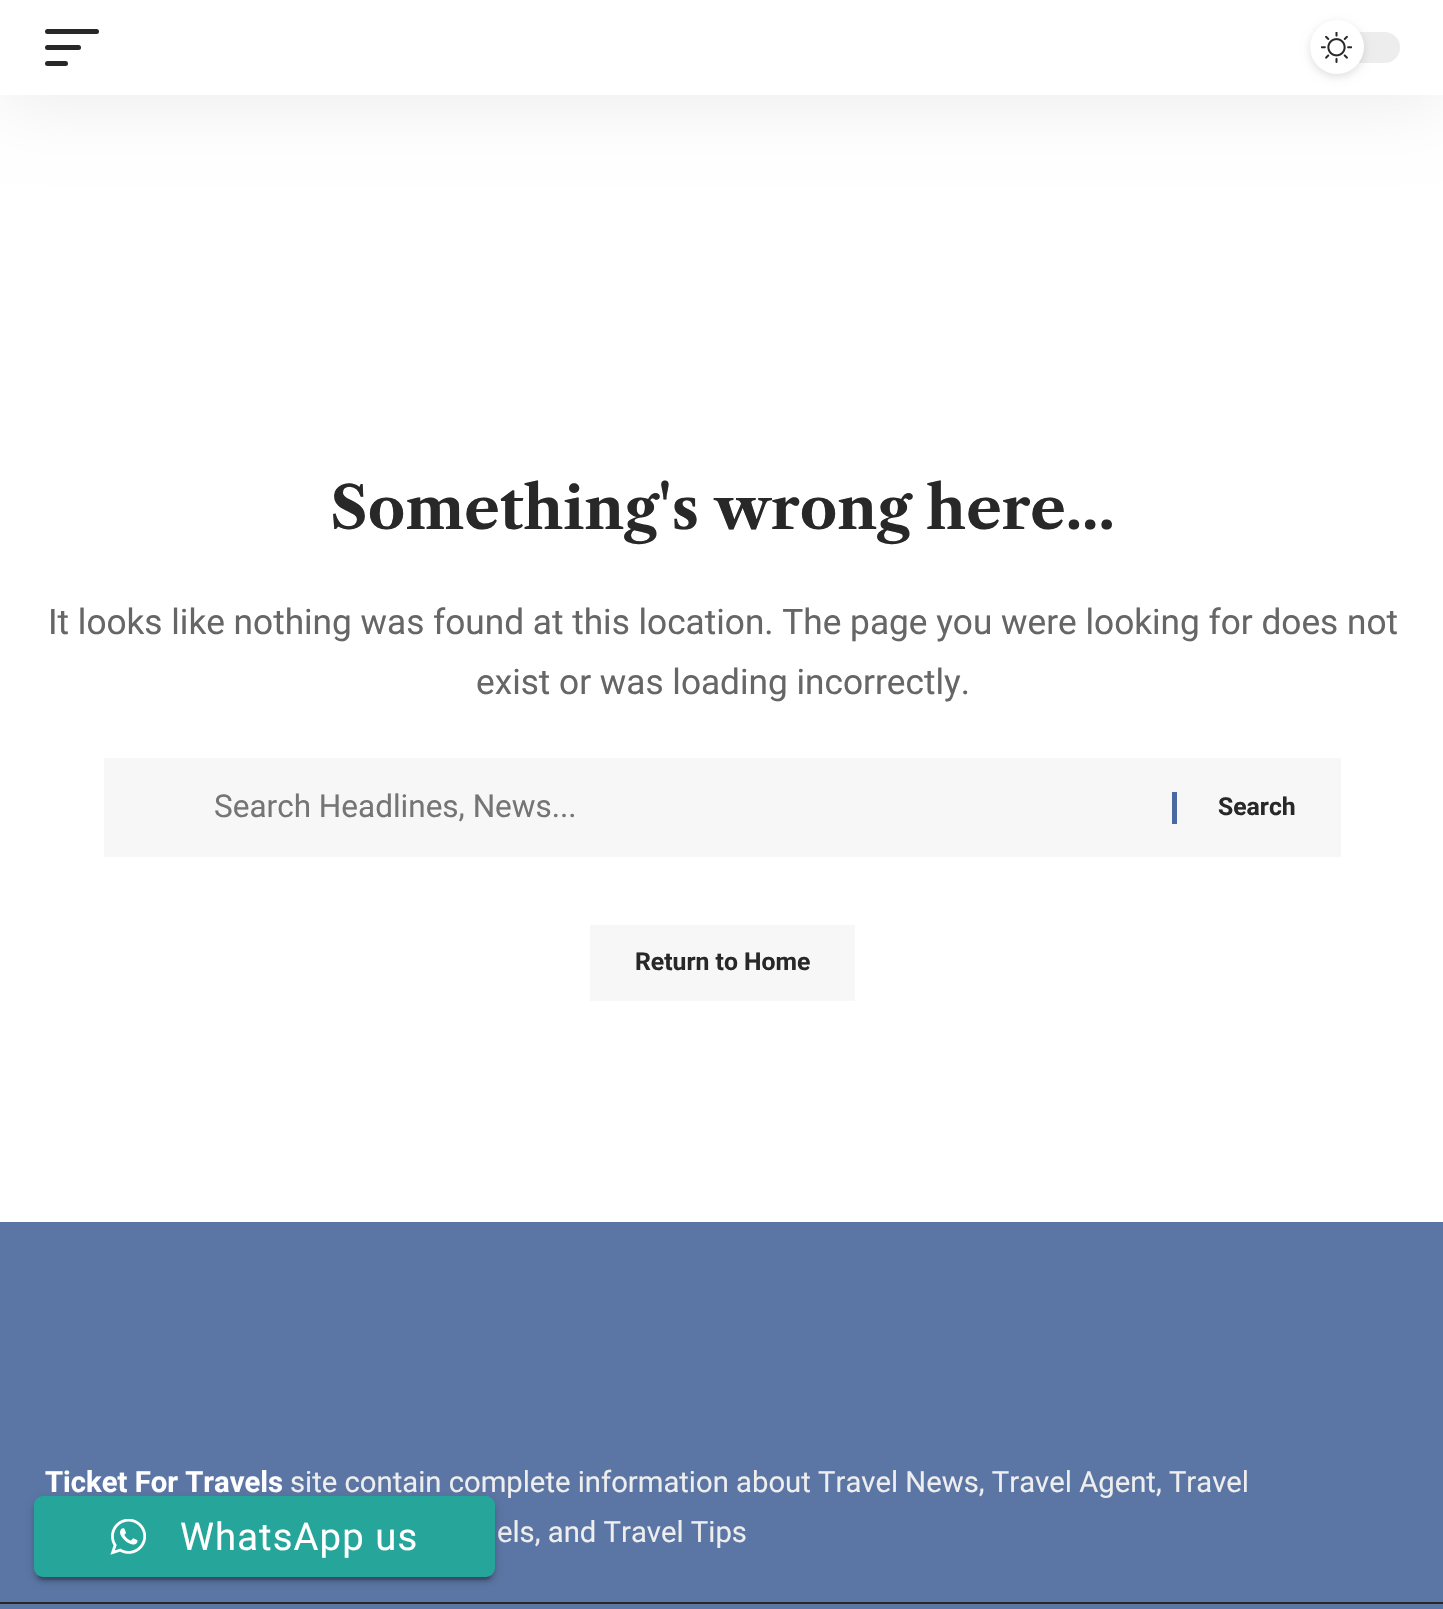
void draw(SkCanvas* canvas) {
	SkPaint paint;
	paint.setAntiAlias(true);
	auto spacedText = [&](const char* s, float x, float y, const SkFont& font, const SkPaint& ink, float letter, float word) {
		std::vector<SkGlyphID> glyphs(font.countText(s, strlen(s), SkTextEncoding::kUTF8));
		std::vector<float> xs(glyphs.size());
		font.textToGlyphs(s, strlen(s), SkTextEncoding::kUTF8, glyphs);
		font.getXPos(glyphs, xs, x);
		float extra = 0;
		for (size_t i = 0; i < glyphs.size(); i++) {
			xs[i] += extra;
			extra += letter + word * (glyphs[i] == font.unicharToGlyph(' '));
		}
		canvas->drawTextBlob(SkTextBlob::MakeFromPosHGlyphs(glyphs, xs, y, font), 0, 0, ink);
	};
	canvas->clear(0xffffffff);
	paint.setColor(0x12000000);
	paint.setMaskFilter(SkMaskFilter::MakeBlur(kNormal_SkBlurStyle, 34));
	canvas->drawRect(SkRect::MakeXYWH(0, 9, 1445, 95), paint);
	paint.setMaskFilter(nullptr);
	paint.setColor(0xffffffff);
	canvas->drawRect(SkRect::MakeXYWH(0, 0, 1443, 95), paint);
	paint.setColor(0xff282828);
	canvas->drawRoundRect(SkRect::MakeXYWH(45, 29, 54, 5), 2.5, 2.5, paint);
	canvas->drawRoundRect(SkRect::MakeXYWH(45, 45, 36, 5), 2.5, 2.5, paint);
	canvas->drawRoundRect(SkRect::MakeXYWH(45, 61, 23, 5), 2.5, 2.5, paint);
	paint.setColor(0xffededed);
	canvas->drawRoundRect(SkRect::MakeXYWH(1310, 32, 90, 31), 15.5, 15.5, paint);
	paint.setColor(0x1f000000);
	paint.setMaskFilter(SkMaskFilter::MakeBlur(kNormal_SkBlurStyle, 4.5));
	canvas->drawRoundRect(SkRect::MakeXYWH(1310, 23, 54, 54), 27, 27, paint);
	paint.setMaskFilter(nullptr);
	paint.setColor(0xffffffff);
	canvas->drawCircle(1337, 47, 27, paint);
	canvas->drawImageRect(SkImages::DeferredFromEncodedData(SkData::MakeFromFileName("img1.png")), SkRect::MakeXYWH(1321, 32, 31, 31), SkSamplingOptions());
	SkFont f1(fontMgr->matchFamilyStyle("Libre Caslon Text", SkFontStyle::Bold()), 58.5);
	f1.setSubpixel(true);
	paint.setColor(0xff282828);
	canvas->drawString("Something's wrong here...", 330, 529, f1, paint);
	SkFont f2(fontMgr->matchFamilyStyle("Roboto", SkFontStyle::Normal()), 35.2);
	f2.setSubpixel(true);
	paint.setColor(0xff666666);
	canvas->drawString("It looks like nothing was found at this location. The page you were looking for does not", 48, 634, f2, paint);
	canvas->drawString("exist or was loading incorrectly.", 476, 694, f2, paint);
	paint.setColor(0xfff7f7f7);
	canvas->drawRect(SkRect::MakeXYWH(104, 758, 1237, 99), paint);
	SkFont f3(fontMgr->matchFamilyStyle("Roboto", SkFontStyle::Normal()), 31.5);
	f3.setSubpixel(true);
	paint.setColor(0xff757575);
	canvas->drawString("Search Headlines, News...", 214, 817, f3, paint);
	paint.setColor(0xff4969a0);
	canvas->drawRect(SkRect::MakeXYWH(1172, 792, 5, 32), paint);
	SkFont f4(fontMgr->matchFamilyStyle("Roboto", SkFontStyle::Bold()), 24.75);
	f4.setSubpixel(true);
	paint.setColor(0xff282828);
	canvas->drawString("Search", 1218, 815, f4, paint);
	paint.setColor(0xfff7f7f7);
	canvas->drawRect(SkRect::MakeXYWH(590, 925, 265, 76), paint);
	paint.setColor(0xff282828);
	canvas->drawString("Return to Home", 635, 970, f4, paint);
	paint.setColor(0xff5b76a5);
	canvas->drawRect(SkRect::MakeXYWH(0, 1222, 1443, 387), paint);
	paint.setColor(0xff282828);
	canvas->drawRect(SkRect::MakeXYWH(0, 1602, 1443, 2), paint);
	SkFont f5(fontMgr->matchFamilyStyle("Roboto", SkFontStyle::Bold()), 29.25);
	f5.setSubpixel(true);
	paint.setColor(0xffffffff);
	canvas->drawString("Ticket For Travels", 45, 1492, f5, paint);
	SkFont f6(fontMgr->matchFamilyStyle("Roboto", SkFontStyle::Normal()), 29.25);
	f6.setSubpixel(true);
	paint.setColor(0xffeeeeee);
	canvas->drawString("site contain complete information about Travel News, Travel Agent, Travel", 290, 1492, f6, paint);
	canvas->drawString("els, and Travel Tips", 497, 1542, f6, paint);
	paint.setColor(0x33000000);
	paint.setMaskFilter(SkMaskFilter::MakeBlur(kNormal_SkBlurStyle, 1));
	canvas->drawRoundRect(SkRect::MakeXYWH(38, 1508, 453, 72), 5, 5, paint);
	paint.setMaskFilter(nullptr);
	paint.setColor(0x1f000000);
	paint.setMaskFilter(SkMaskFilter::MakeBlur(kNormal_SkBlurStyle, 5.5));
	canvas->drawRoundRect(SkRect::MakeXYWH(34, 1499, 461, 81), 9, 9, paint);
	paint.setMaskFilter(nullptr);
	paint.setColor(0x24000000);
	paint.setMaskFilter(SkMaskFilter::MakeBlur(kNormal_SkBlurStyle, 2));
	canvas->drawRoundRect(SkRect::MakeXYWH(34, 1501, 461, 81), 9, 9, paint);
	paint.setMaskFilter(nullptr);
	paint.setColor(0xff26a69a);
	canvas->drawRoundRect(SkRect::MakeXYWH(34, 1496, 461, 81), 9, 9, paint);
	canvas->drawImageRect(SkImages::DeferredFromEncodedData(SkData::MakeFromFileName("img2.png")), SkRect::MakeXYWH(110, 1519, 36, 36), SkSamplingOptions());
	SkFont f7(fontMgr->matchFamilyStyle("Roboto", SkFontStyle::Normal()), 38.25);
	f7.setSubpixel(true);
	paint.setColor(0xffffffff);
	spacedText("WhatsApp us", 180, 1550, f7, paint, 1.1, 0);
}
